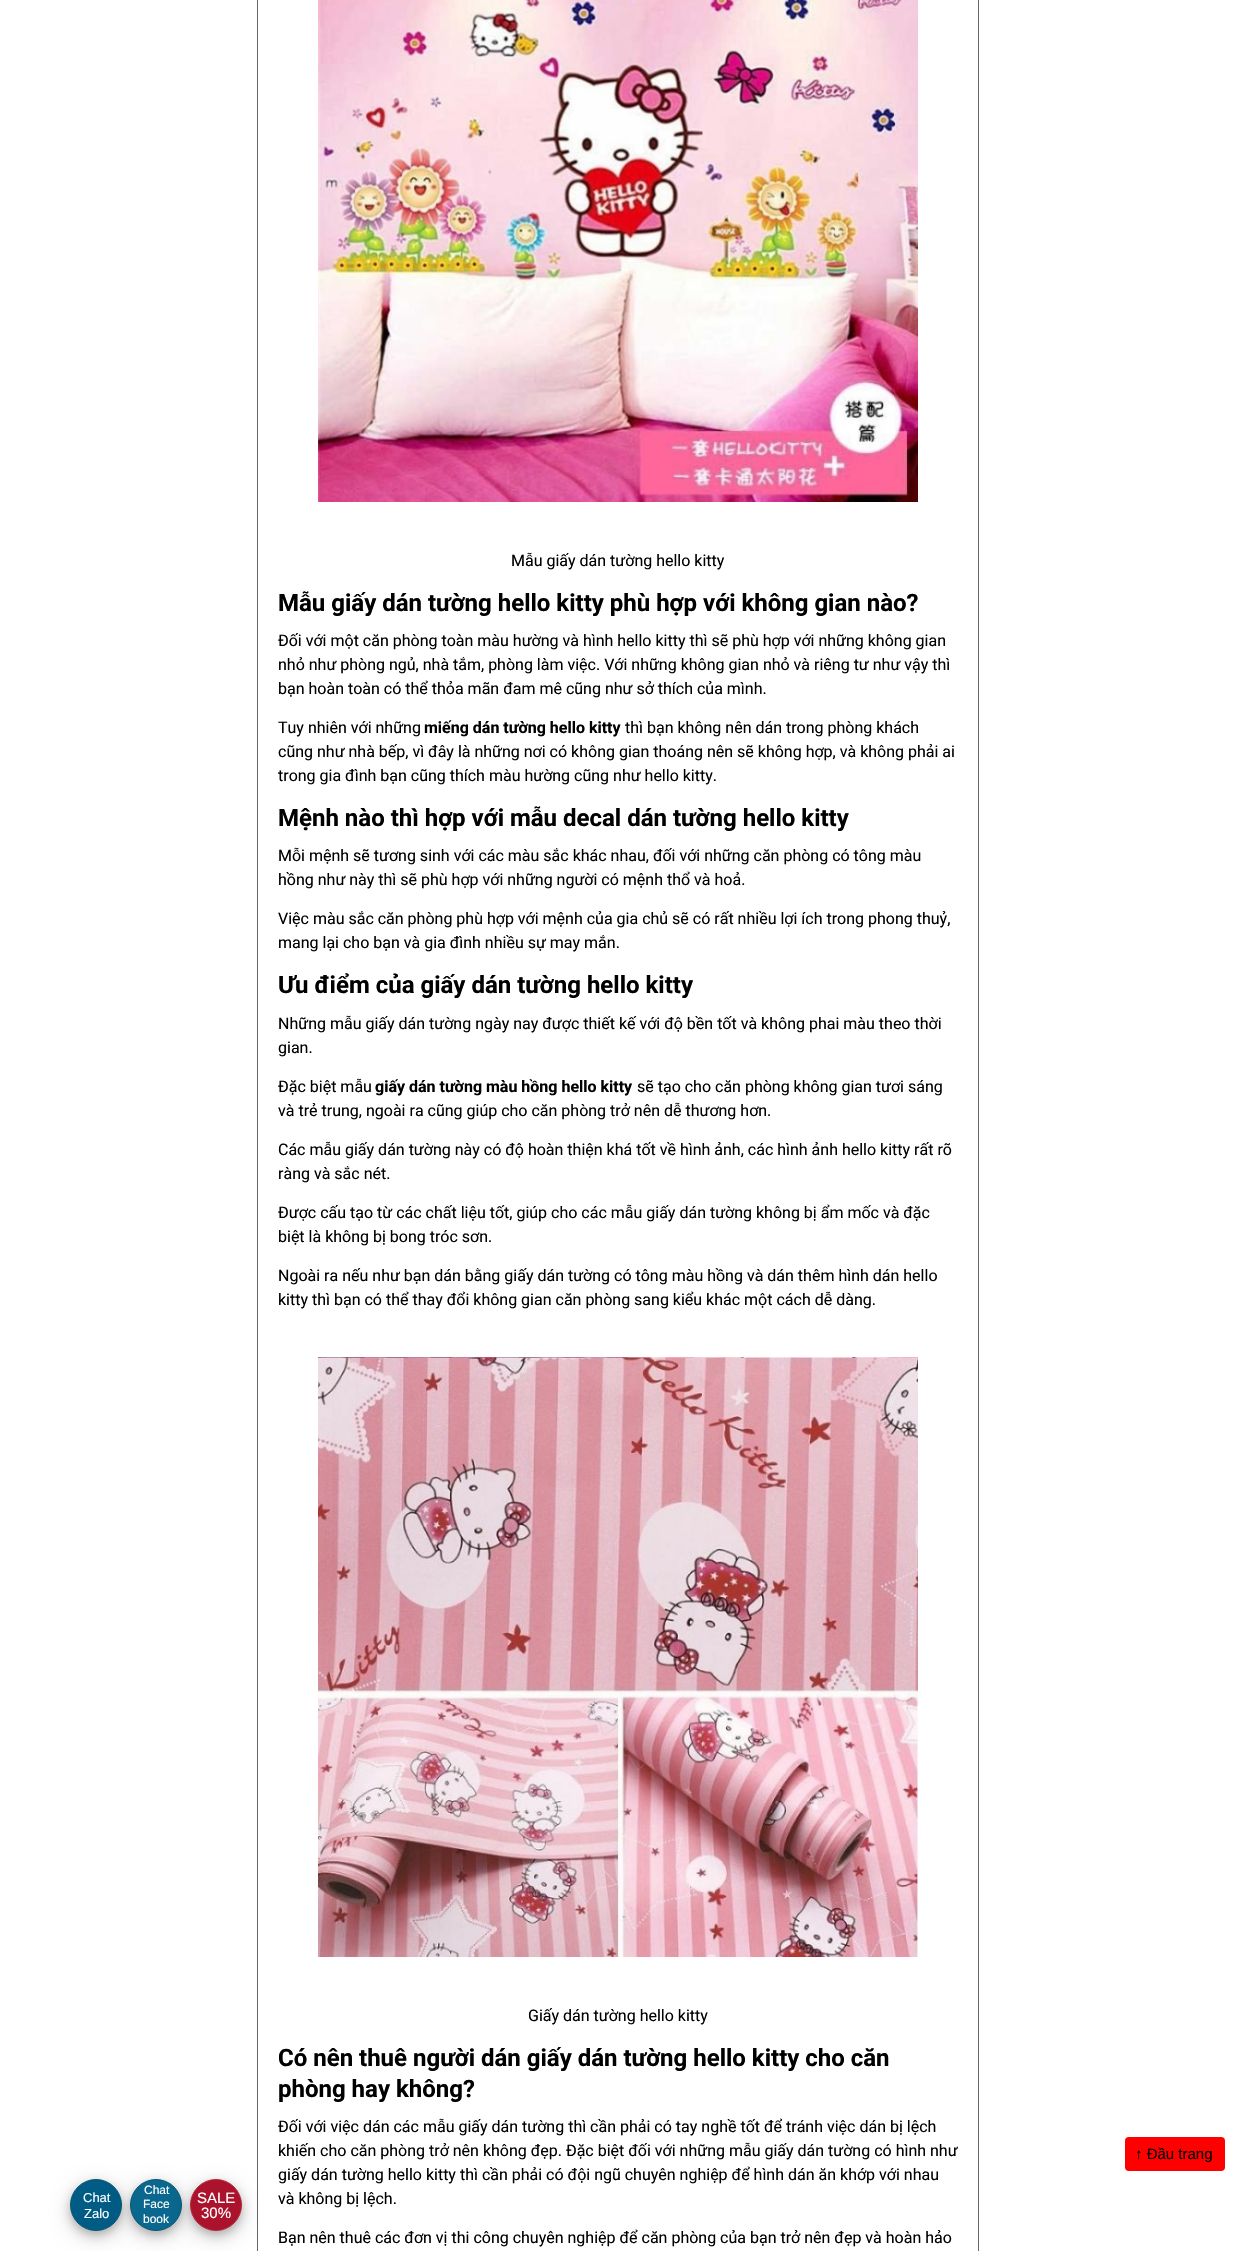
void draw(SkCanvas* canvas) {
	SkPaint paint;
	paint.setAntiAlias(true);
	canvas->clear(0xffffffff);
	paint.setStroke(true);
	paint.setStrokeWidth(1);
	paint.setColor(0xff666666);
	canvas->drawRect(SkRect::MakeXYWH(257.5, -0.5, 721, 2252), paint);
	canvas->drawImageRect(SkImages::DeferredFromEncodedData(SkData::MakeFromFileName("img1.png")), SkRect::MakeXYWH(318, 0, 600, 502), SkSamplingOptions());
	SkFont f1(fontMgr->matchFamilyStyle("Roboto", SkFontStyle::Normal()), 16);
	f1.setSubpixel(true);
	paint.setStroke(false);
	paint.setColor(0xff000000);
	canvas->drawString("Mẫu giấy dán tường hello kitty", 511, 566, f1, paint);
	SkFont f2(fontMgr->matchFamilyStyle("Roboto", SkFontStyle::Bold()), 24);
	f2.setSubpixel(true);
	canvas->drawString("Mẫu giấy dán tường hello kitty phù hợp với không gian nào?", 278, 611, f2, paint);
	canvas->drawString("Đối với một căn phòng toàn màu hường và hình hello kitty thì sẽ phù hợp với những không gian", 278, 646, f1, paint);
	canvas->drawString("nhỏ như phòng ngủ, nhà tắm, phòng làm việc. Với những không gian nhỏ và riêng tư như vậy thì", 278, 670, f1, paint);
	canvas->drawString("bạn hoàn toàn có thể thỏa mãn đam mê cũng như sở thích của mình.", 278, 694, f1, paint);
	canvas->drawString("Tuy nhiên với những", 278, 733, f1, paint);
	SkFont f3(fontMgr->matchFamilyStyle("Roboto", SkFontStyle::Bold()), 16);
	f3.setSubpixel(true);
	canvas->drawString("miếng dán tường hello kitty", 424, 733, f3, paint);
	canvas->drawString("thì bạn không nên dán trong phòng khách", 625, 733, f1, paint);
	canvas->drawString("cũng như nhà bếp, vì đây là những nơi có không gian thoáng nên sẽ không hợp, và không phải ai", 278, 757, f1, paint);
	canvas->drawString("trong gia đình bạn cũng thích màu hường cũng như hello kitty.", 278, 781, f1, paint);
	canvas->drawString("Mệnh nào thì hợp với mẫu decal dán tường hello kitty", 278, 826, f2, paint);
	canvas->drawString("Mỗi mệnh sẽ tương sinh với các màu sắc khác nhau, đối với những căn phòng có tông màu", 278, 861, f1, paint);
	canvas->drawString("hồng như này thì sẽ phù hợp với những người có mệnh thổ và hoả.", 278, 885, f1, paint);
	canvas->drawString("Việc màu sắc căn phòng phù hợp với mệnh của gia chủ sẽ có rất nhiều lợi ích trong phong thuỷ,", 278, 924, f1, paint);
	canvas->drawString("mang lại cho bạn và gia đình nhiều sự may mắn.", 278, 948, f1, paint);
	canvas->drawString("Ưu điểm của giấy dán tường hello kitty", 278, 993, f2, paint);
	canvas->drawString("Những mẫu giấy dán tường ngày nay được thiết kế với độ bền tốt và không phai màu theo thời", 278, 1029, f1, paint);
	canvas->drawString("gian.", 278, 1053, f1, paint);
	canvas->drawString("Đặc biệt mẫu", 278, 1092, f1, paint);
	canvas->drawString("giấy dán tường màu hồng hello kitty", 375, 1092, f3, paint);
	canvas->drawString("sẽ tạo cho căn phòng không gian tươi sáng", 637, 1092, f1, paint);
	canvas->drawString("và trẻ trung, ngoài ra cũng giúp cho căn phòng trở nên dễ thương hơn.", 278, 1116, f1, paint);
	canvas->drawString("Các mẫu giấy dán tường này có độ hoàn thiện khá tốt về hình ảnh, các hình ảnh hello kitty rất rõ", 278, 1155, f1, paint);
	canvas->drawString("ràng và sắc nét.", 278, 1179, f1, paint);
	canvas->drawString("Được cấu tạo từ các chất liệu tốt, giúp cho các mẫu giấy dán tường không bị ẩm mốc và đặc", 278, 1218, f1, paint);
	canvas->drawString("biệt là không bị bong tróc sơn.", 278, 1242, f1, paint);
	canvas->drawString("Ngoài ra nếu như bạn dán bằng giấy dán tường có tông màu hồng và dán thêm hình dán hello", 278, 1281, f1, paint);
	canvas->drawString("kitty thì bạn có thể thay đổi không gian căn phòng sang kiểu khác một cách dễ dàng.", 278, 1305, f1, paint);
	canvas->drawImageRect(SkImages::DeferredFromEncodedData(SkData::MakeFromFileName("img2.png")), SkRect::MakeXYWH(318, 1357, 600, 600), SkSamplingOptions());
	canvas->drawString("Giấy dán tường hello kitty", 528, 2021, f1, paint);
	canvas->drawString("Có nên thuê người dán giấy dán tường hello kitty cho căn", 278, 2066, f2, paint);
	canvas->drawString("phòng hay không?", 278, 2097, f2, paint);
	canvas->drawString("Đối với việc dán các mẫu giấy dán tường thì cần phải có tay nghề tốt để tránh việc dán bị lệch", 278, 2132, f1, paint);
	canvas->drawString("khiến cho căn phòng trở nên không đẹp. Đặc biệt đối với những mẫu giấy dán tường có hình như", 278, 2156, f1, paint);
	canvas->drawString("giấy dán tường hello kitty thì cần phải có đội ngũ chuyên nghiệp để hình dán ăn khớp với nhau", 278, 2180, f1, paint);
	canvas->drawString("và không bị lệch.", 278, 2204, f1, paint);
	canvas->drawString("Bạn nên thuê các đơn vị thi công chuyên nghiệp để căn phòng của bạn trở nên đẹp và hoàn hảo", 278, 2243, f1, paint);
	paint.setColor(0xffff0000);
	canvas->drawRoundRect(SkRect::MakeXYWH(1125, 2137, 100, 34), 4, 4, paint);
	SkFont f4(fontMgr->matchFamilyStyle("Liberation Sans", SkFontStyle::Normal()), 15);
	f4.setSubpixel(true);
	paint.setColor(0xff000000);
	canvas->drawString("↑ Đầu trang", 1135, 2159, f4, paint);
	paint.setColor(0x30000000);
	paint.setMaskFilter(SkMaskFilter::MakeBlur(kNormal_SkBlurStyle, 10));
	canvas->drawRoundRect(SkRect::MakeXYWH(70, 2185, 52, 52), 26, 26, paint);
	paint.setMaskFilter(nullptr);
	paint.setColor(0x33000000);
	paint.setMaskFilter(SkMaskFilter::MakeBlur(kNormal_SkBlurStyle, 4));
	canvas->drawRoundRect(SkRect::MakeXYWH(70, 2183, 52, 52), 26, 26, paint);
	paint.setMaskFilter(nullptr);
	paint.setColor(0xff005b85);
	canvas->drawCircle(96, 2205, 25.5, paint);
	paint.setStroke(true);
	paint.setColor(0xff065771);
	canvas->drawCircle(96, 2205, 25.5, paint);
	SkFont f5(fontMgr->matchFamilyStyle("Liberation Sans", SkFontStyle::Normal()), 13);
	f5.setSubpixel(true);
	paint.setStroke(false);
	paint.setColor(0xffffffff);
	canvas->drawString("Chat", 83, 2202, f5, paint);
	canvas->drawString("Zalo", 84, 2218, f5, paint);
	paint.setColor(0x30000000);
	paint.setMaskFilter(SkMaskFilter::MakeBlur(kNormal_SkBlurStyle, 10));
	canvas->drawRoundRect(SkRect::MakeXYWH(130, 2185, 52, 52), 26, 26, paint);
	paint.setMaskFilter(nullptr);
	paint.setColor(0x33000000);
	paint.setMaskFilter(SkMaskFilter::MakeBlur(kNormal_SkBlurStyle, 4));
	canvas->drawRoundRect(SkRect::MakeXYWH(130, 2183, 52, 52), 26, 26, paint);
	paint.setMaskFilter(nullptr);
	paint.setColor(0xff0a678e);
	canvas->drawCircle(156, 2205, 25.5, paint);
	paint.setStroke(true);
	paint.setColor(0xff065771);
	canvas->drawCircle(156, 2205, 25.5, paint);
	SkFont f6(fontMgr->matchFamilyStyle("Liberation Sans", SkFontStyle::Normal()), 12);
	f6.setSubpixel(true);
	paint.setStroke(false);
	paint.setColor(0xffffffff);
	canvas->drawString("Chat", 144, 2194, f6, paint);
	canvas->drawString("Face", 143, 2208, f6, paint);
	canvas->drawString("book", 143, 2223, f6, paint);
	paint.setColor(0x30000000);
	paint.setMaskFilter(SkMaskFilter::MakeBlur(kNormal_SkBlurStyle, 10));
	canvas->drawRoundRect(SkRect::MakeXYWH(190, 2185, 52, 52), 26, 26, paint);
	paint.setMaskFilter(nullptr);
	paint.setColor(0x33000000);
	paint.setMaskFilter(SkMaskFilter::MakeBlur(kNormal_SkBlurStyle, 4));
	canvas->drawRoundRect(SkRect::MakeXYWH(190, 2183, 52, 52), 26, 26, paint);
	paint.setMaskFilter(nullptr);
	paint.setColor(0xffaa132b);
	canvas->drawCircle(216, 2205, 25.5, paint);
	paint.setStroke(true);
	paint.setColor(0xffb3273a);
	canvas->drawCircle(216, 2205, 25.5, paint);
	paint.setStroke(false);
	paint.setColor(0xffffffff);
	canvas->drawString("SALE", 197, 2203, f4, paint);
	canvas->drawString("30%", 201, 2218, f4, paint);
}
